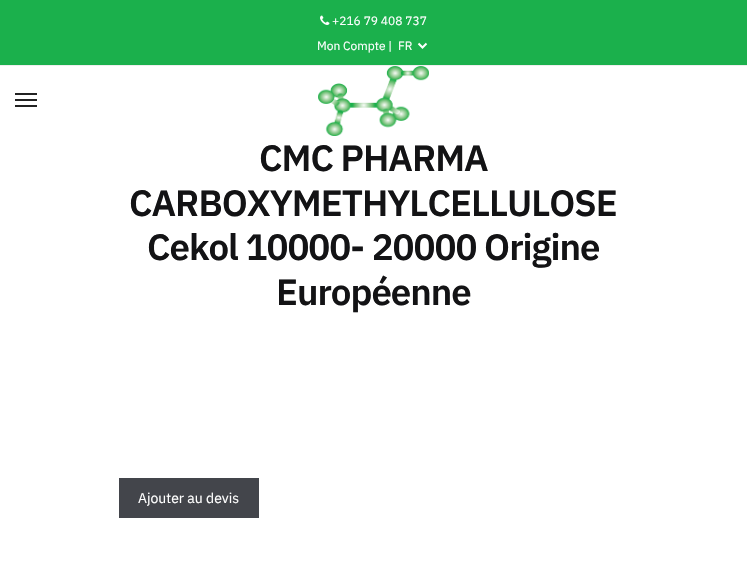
void draw(SkCanvas* canvas) {
	SkPaint paint;
	paint.setAntiAlias(true);
	auto spacedText = [&](const char* s, float x, float y, const SkFont& font, const SkPaint& ink, float letter, float word) {
		std::vector<SkGlyphID> glyphs(font.countText(s, strlen(s), SkTextEncoding::kUTF8));
		std::vector<float> xs(glyphs.size());
		font.textToGlyphs(s, strlen(s), SkTextEncoding::kUTF8, glyphs);
		font.getXPos(glyphs, xs, x);
		float extra = 0;
		for (size_t i = 0; i < glyphs.size(); i++) {
			xs[i] += extra;
			extra += letter + word * (glyphs[i] == font.unicharToGlyph(' '));
		}
		canvas->drawTextBlob(SkTextBlob::MakeFromPosHGlyphs(glyphs, xs, y, font), 0, 0, ink);
	};
	auto svgPath = [&](const char* data, bool evenOdd = false) {
		SkPath result = *SkParsePath::FromSVGString(data);
		if (evenOdd) result.setFillType(SkPathFillType::kEvenOdd);
		return result;
	};
	canvas->clear(0xffffffff);
	paint.setColor(0xff1bb04c);
	canvas->drawRect(SkRect::MakeXYWH(0, 0, 747, 65), paint);
	paint.setColor(0xffeeeeee);
	canvas->drawRect(SkRect::MakeXYWH(0, 65, 747, 1), paint);
	canvas->drawImageRect(SkImages::DeferredFromEncodedData(SkData::MakeFromFileName("img1.png")), SkRect::MakeXYWH(320, 15, 10, 10), SkSamplingOptions());
	SkFont f1(fontMgr->matchFamilyStyle("IBM Plex Sans", SkFontStyle::Normal()), 12);
	f1.setSubpixel(true);
	paint.setColor(0xffffffff);
	canvas->drawString("+216 79 408 737", 332, 25, f1, paint);
	canvas->drawString("Mon Compte |", 317, 50, f1, paint);
	paint.setStroke(true);
	paint.setStrokeWidth(2);
	canvas->drawPath(svgPath("M418.5 43.5L422.5 47.5L426.5 43.5"), paint);
	paint.setStroke(false);
	canvas->drawString("FR", 398, 50, f1, paint);
	paint.setColor(0xff222222);
	canvas->drawRect(SkRect::MakeXYWH(15, 93, 22, 2), paint);
	canvas->drawRect(SkRect::MakeXYWH(15, 99, 22, 2), paint);
	canvas->drawRect(SkRect::MakeXYWH(15, 105, 22, 2), paint);
	canvas->drawImageRect(SkImages::DeferredFromEncodedData(SkData::MakeFromFileName("img2.png")), SkRect::MakeXYWH(318, 66, 111, 70), SkSamplingOptions());
	SkFont f2(fontMgr->matchFamilyStyle("IBM Plex Sans", SkFontStyle(600, SkFontStyle::kNormal_Width, SkFontStyle::kUpright_Slant)), 36.6);
	f2.setSubpixel(true);
	paint.setColor(0xff131315);
	spacedText("CMC PHARMA", 259, 171, f2, paint, -1, 0);
	spacedText("CARBOXYMETHYLCELLULOSE", 129, 216, f2, paint, -1, 0);
	spacedText("Cekol 10000- 20000 Origine", 147, 260, f2, paint, -1, 0);
	spacedText("Européenne", 276, 305, f2, paint, -1, 0);
	paint.setColor(0xff43454b);
	canvas->drawRect(SkRect::MakeXYWH(119, 478, 140, 40), paint);
	SkFont f3(fontMgr->matchFamilyStyle("IBM Plex Sans", SkFontStyle::Normal()), 14);
	f3.setSubpixel(true);
	paint.setColor(0xffffffff);
	canvas->drawString("Ajouter au devis", 138, 503, f3, paint);
}
